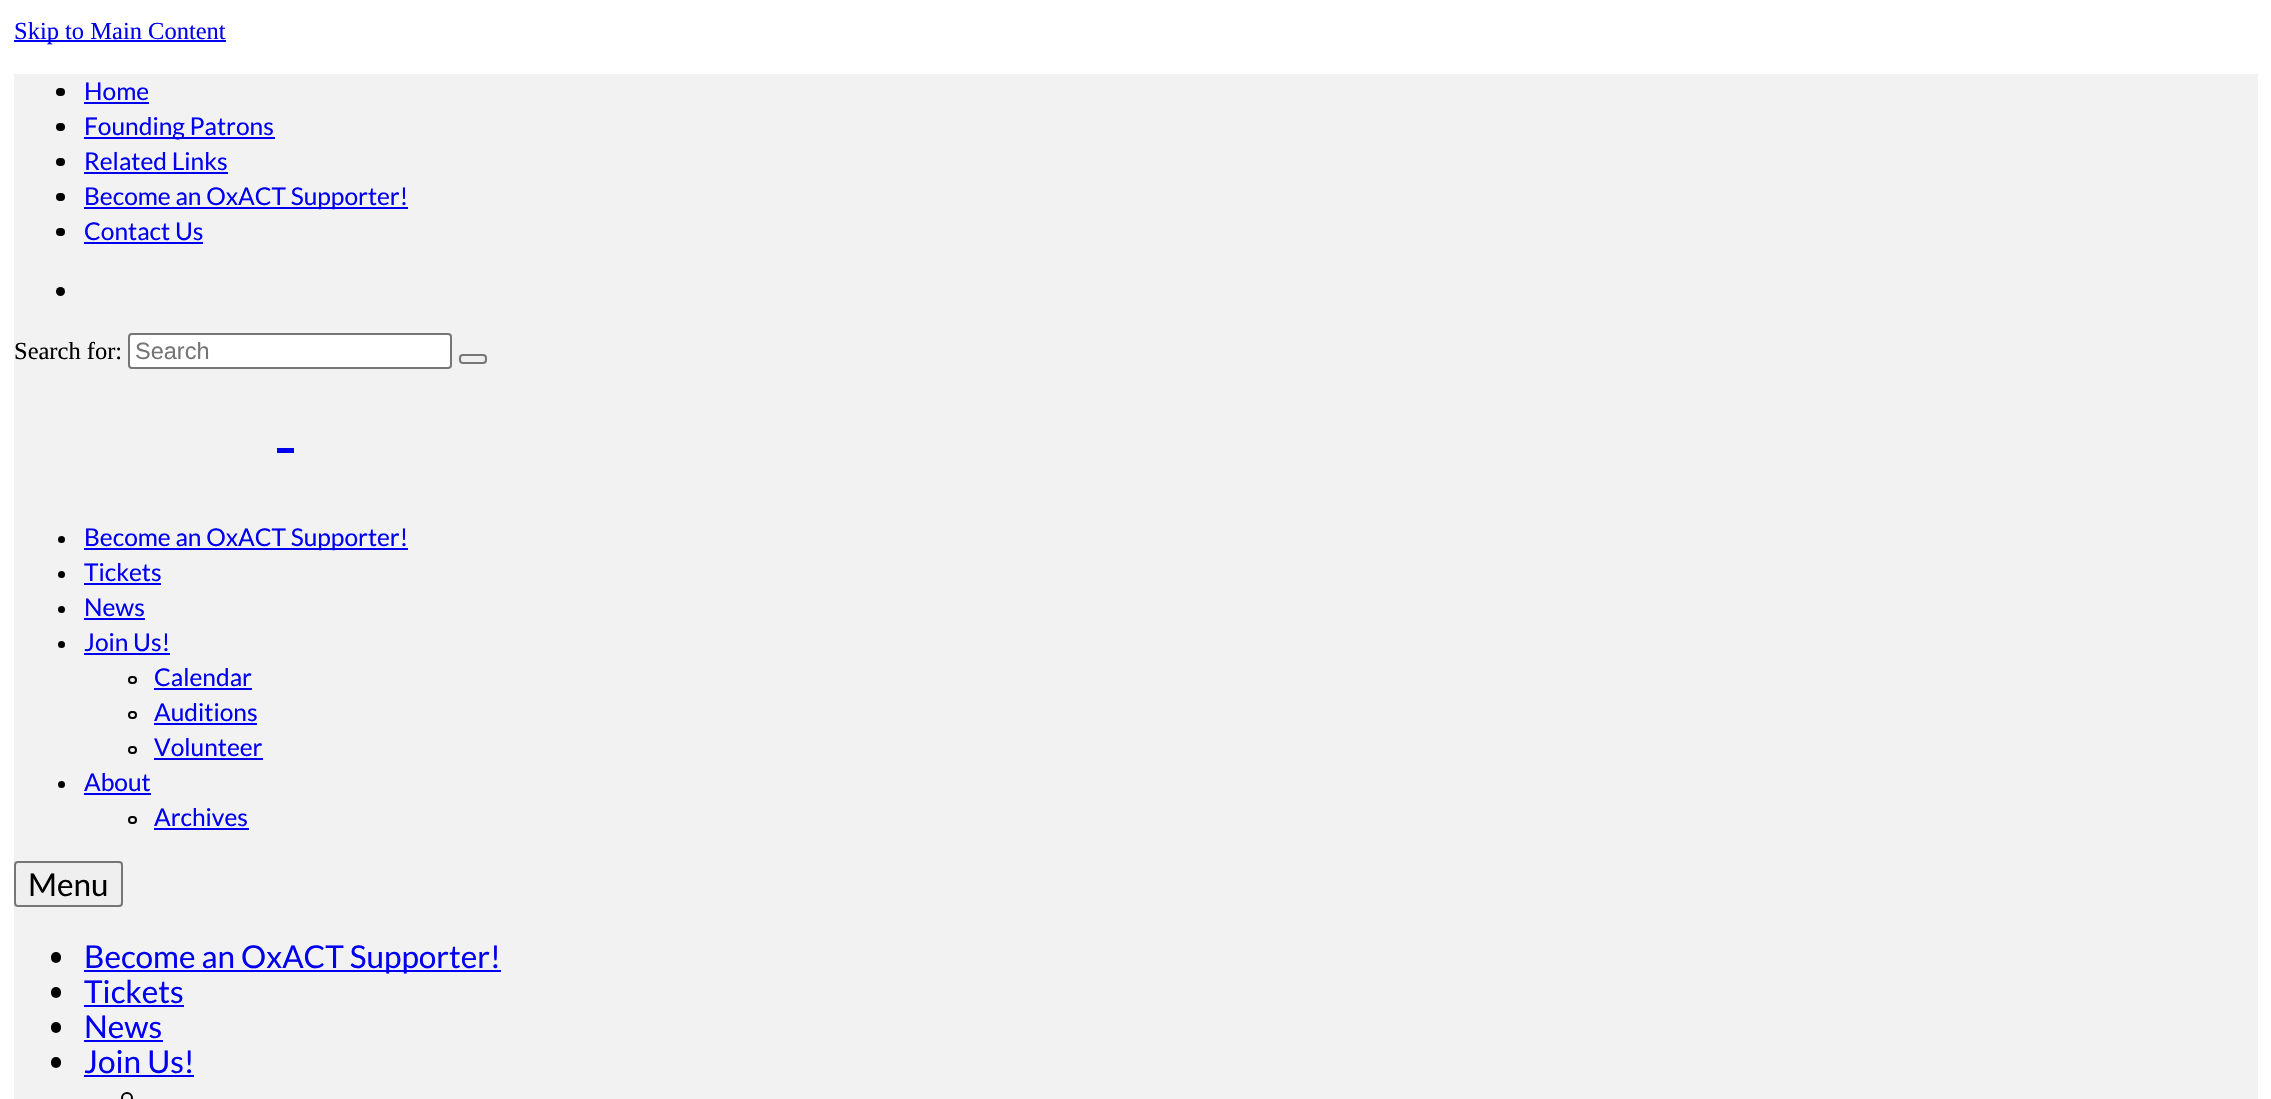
void draw(SkCanvas* canvas) {
	SkPaint paint;
	paint.setAntiAlias(true);
	canvas->clear(0xffffffff);
	paint.setColor(0xff0000ee);
	canvas->drawRect(SkRect::MakeXYWH(14, 40, 212, 2), paint);
	SkFont f1(fontMgr->matchFamilyStyle("Liberation Serif", SkFontStyle::Normal()), 24.5);
	f1.setSubpixel(true);
	canvas->drawString("Skip to Main Content", 14, 39, f1, paint);
	paint.setColor(0xfff2f2f2);
	canvas->drawRect(SkRect::MakeXYWH(14, 74, 2244, 1025), paint);
	paint.setColor(0xff000000);
	canvas->drawRoundRect(SkRect::MakeXYWH(56, 88, 9, 8), 4, 4, paint);
	SkFont f2(fontMgr->matchFamilyStyle("Lato", SkFontStyle::Normal()), 24.5);
	f2.setSubpixel(true);
	paint.setColor(0xff0000ee);
	canvas->drawString("Home", 84, 100, f2, paint);
	canvas->drawRect(SkRect::MakeXYWH(84, 102, 65, 2), paint);
	paint.setColor(0xff000000);
	canvas->drawRoundRect(SkRect::MakeXYWH(56, 123, 9, 8), 4, 4, paint);
	paint.setColor(0xff0000ee);
	canvas->drawRect(SkRect::MakeXYWH(84, 137, 191, 2), paint);
	canvas->drawString("Founding Patrons", 84, 135, f2, paint);
	paint.setColor(0xff000000);
	canvas->drawRoundRect(SkRect::MakeXYWH(56, 158, 9, 8), 4, 4, paint);
	paint.setColor(0xff0000ee);
	canvas->drawString("Related Links", 84, 170, f2, paint);
	canvas->drawRect(SkRect::MakeXYWH(84, 172, 144, 2), paint);
	paint.setColor(0xff000000);
	canvas->drawRoundRect(SkRect::MakeXYWH(56, 193, 9, 8), 4, 4, paint);
	paint.setColor(0xff0000ee);
	canvas->drawRect(SkRect::MakeXYWH(84, 207, 324, 2), paint);
	canvas->drawString("Become an OxACT Supporter!", 84, 205, f2, paint);
	paint.setColor(0xff000000);
	canvas->drawRoundRect(SkRect::MakeXYWH(56, 228, 9, 8), 4, 4, paint);
	paint.setColor(0xff0000ee);
	canvas->drawString("Contact Us", 84, 240, f2, paint);
	canvas->drawRect(SkRect::MakeXYWH(84, 242, 119, 2), paint);
	paint.setColor(0xff000000);
	canvas->drawCircle(60.5, 291.5, 4.5, paint);
	canvas->drawString("Search for:", 14, 359, f1, paint);
	paint.setColor(0xffffffff);
	canvas->drawRoundRect(SkRect::MakeXYWH(129, 334, 322, 34), 3, 3, paint);
	paint.setStroke(true);
	paint.setStrokeWidth(2);
	paint.setColor(0xff767676);
	canvas->drawRoundRect(SkRect::MakeXYWH(129, 334, 322, 34), 3, 3, paint);
	SkFont f3(fontMgr->matchFamilyStyle("Liberation Sans", SkFontStyle::Normal()), 23.5);
	f3.setSubpixel(true);
	paint.setStroke(false);
	paint.setColor(0xff757575);
	canvas->drawString("Search", 135, 359, f3, paint);
	paint.setColor(0xffefefef);
	canvas->drawRoundRect(SkRect::MakeXYWH(460, 355, 26, 8), 3, 3, paint);
	paint.setStroke(true);
	paint.setColor(0xff767676);
	canvas->drawRoundRect(SkRect::MakeXYWH(460, 355, 26, 8), 3, 3, paint);
	paint.setStroke(false);
	paint.setColor(0xff0000ee);
	canvas->drawRect(SkRect::MakeXYWH(277, 448, 17, 5), paint);
	paint.setColor(0xff000000);
	canvas->drawCircle(61.5, 539.5, 3.5, paint);
	paint.setColor(0xff0000ee);
	canvas->drawRect(SkRect::MakeXYWH(84, 548, 324, 2), paint);
	canvas->drawString("Become an OxACT Supporter!", 84, 546, f2, paint);
	paint.setColor(0xff000000);
	canvas->drawCircle(61.5, 574.5, 3.5, paint);
	paint.setColor(0xff0000ee);
	canvas->drawString("Tickets", 84, 581, f2, paint);
	canvas->drawRect(SkRect::MakeXYWH(84, 583, 77, 2), paint);
	paint.setColor(0xff000000);
	canvas->drawCircle(61.5, 609.5, 3.5, paint);
	paint.setColor(0xff0000ee);
	canvas->drawString("News", 84, 616, f2, paint);
	canvas->drawRect(SkRect::MakeXYWH(84, 618, 61, 2), paint);
	paint.setColor(0xff000000);
	canvas->drawCircle(61.5, 644.5, 3.5, paint);
	paint.setColor(0xff0000ee);
	canvas->drawString("Join Us!", 84, 651, f2, paint);
	canvas->drawRect(SkRect::MakeXYWH(84, 653, 86, 2), paint);
	paint.setStroke(true);
	paint.setColor(0xff000000);
	canvas->drawRoundRect(SkRect::MakeXYWH(129, 677, 7, 6), 3, 3, paint);
	paint.setStroke(false);
	paint.setColor(0xff0000ee);
	canvas->drawString("Calendar", 154, 686, f2, paint);
	canvas->drawRect(SkRect::MakeXYWH(154, 688, 98, 2), paint);
	paint.setStroke(true);
	paint.setColor(0xff000000);
	canvas->drawRoundRect(SkRect::MakeXYWH(129, 712, 7, 6), 3, 3, paint);
	paint.setStroke(false);
	paint.setColor(0xff0000ee);
	canvas->drawString("Auditions", 154, 721, f2, paint);
	canvas->drawRect(SkRect::MakeXYWH(154, 723, 103, 2), paint);
	paint.setStroke(true);
	paint.setColor(0xff000000);
	canvas->drawRoundRect(SkRect::MakeXYWH(129, 747, 7, 6), 3, 3, paint);
	paint.setStroke(false);
	paint.setColor(0xff0000ee);
	canvas->drawString("Volunteer", 154, 756, f2, paint);
	canvas->drawRect(SkRect::MakeXYWH(154, 758, 109, 2), paint);
	paint.setColor(0xff000000);
	canvas->drawCircle(61.5, 784.5, 3.5, paint);
	paint.setColor(0xff0000ee);
	canvas->drawString("About", 84, 791, f2, paint);
	canvas->drawRect(SkRect::MakeXYWH(84, 793, 67, 2), paint);
	paint.setStroke(true);
	paint.setColor(0xff000000);
	canvas->drawRoundRect(SkRect::MakeXYWH(129, 817, 7, 6), 3, 3, paint);
	paint.setStroke(false);
	paint.setColor(0xff0000ee);
	canvas->drawString("Archives", 154, 826, f2, paint);
	canvas->drawRect(SkRect::MakeXYWH(154, 828, 95, 2), paint);
	paint.setColor(0xffefefef);
	canvas->drawRoundRect(SkRect::MakeXYWH(15, 862, 107, 44), 3, 3, paint);
	paint.setStroke(true);
	paint.setColor(0xff767676);
	canvas->drawRoundRect(SkRect::MakeXYWH(15, 862, 107, 44), 3, 3, paint);
	SkFont f4(fontMgr->matchFamilyStyle("Lato", SkFontStyle::Normal()), 31.5);
	f4.setSubpixel(true);
	paint.setStroke(false);
	paint.setColor(0xff000000);
	canvas->drawString("Menu", 28, 896, f4, paint);
	canvas->drawRoundRect(SkRect::MakeXYWH(51, 952, 10, 11), 5, 5, paint);
	paint.setColor(0xff0000ee);
	canvas->drawRect(SkRect::MakeXYWH(84, 970, 417, 2), paint);
	canvas->drawString("Become an OxACT Supporter!", 84, 968, f4, paint);
	paint.setColor(0xff000000);
	canvas->drawRoundRect(SkRect::MakeXYWH(51, 987, 10, 11), 5, 5, paint);
	paint.setColor(0xff0000ee);
	canvas->drawString("Tickets", 84, 1003, f4, paint);
	canvas->drawRect(SkRect::MakeXYWH(84, 1005, 100, 2), paint);
	paint.setColor(0xff000000);
	canvas->drawRoundRect(SkRect::MakeXYWH(51, 1022, 10, 11), 5, 5, paint);
	paint.setColor(0xff0000ee);
	canvas->drawString("News", 84, 1038, f4, paint);
	canvas->drawRect(SkRect::MakeXYWH(84, 1040, 79, 2), paint);
	paint.setColor(0xff000000);
	canvas->drawRoundRect(SkRect::MakeXYWH(51, 1057, 10, 11), 5, 5, paint);
	paint.setColor(0xff0000ee);
	canvas->drawString("Join Us!", 84, 1073, f4, paint);
	canvas->drawRect(SkRect::MakeXYWH(84, 1075, 110, 2), paint);
	paint.setStroke(true);
	paint.setColor(0xff000000);
	canvas->drawCircle(127, 1098, 5, paint);
}
